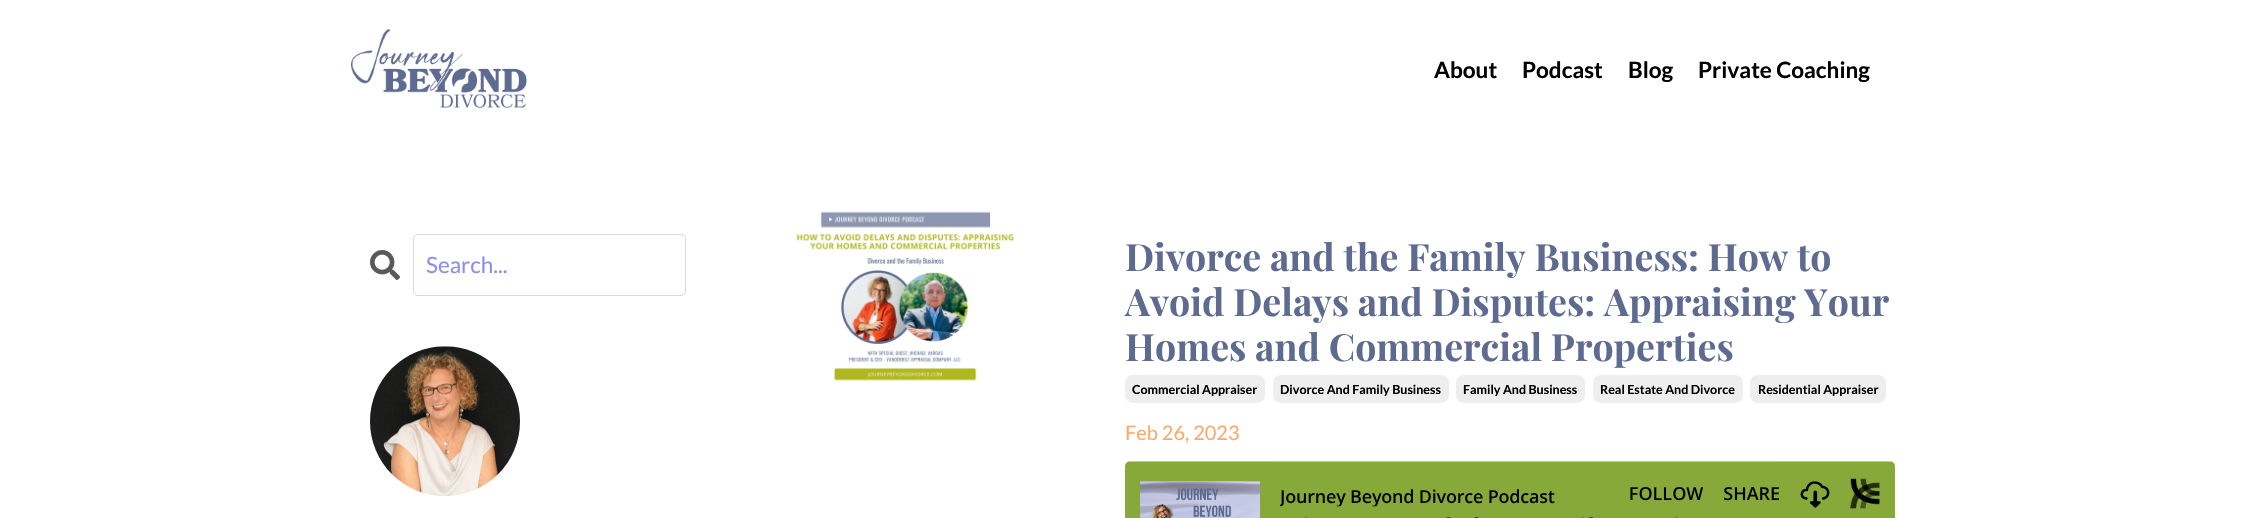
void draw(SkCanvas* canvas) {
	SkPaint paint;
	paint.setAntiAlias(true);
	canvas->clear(0xffffffff);
	canvas->drawImageRect(SkImages::DeferredFromEncodedData(SkData::MakeFromFileName("img1.png")), SkRect::MakeXYWH(351, 29, 176, 79), SkSamplingOptions());
	SkFont f1(fontMgr->matchFamilyStyle("Lato", SkFontStyle::Bold()), 22.5);
	f1.setSubpixel(true);
	paint.setColor(0xff000000);
	canvas->drawString("About", 1434, 78, f1, paint);
	canvas->drawString("Podcast", 1522, 78, f1, paint);
	canvas->drawString("Blog", 1628, 78, f1, paint);
	canvas->drawString("Private Coaching", 1698, 78, f1, paint);
	canvas->drawImageRect(SkImages::DeferredFromEncodedData(SkData::MakeFromFileName("img2.png")), SkRect::MakeXYWH(370, 250, 30, 30), SkSamplingOptions());
	paint.setStroke(true);
	paint.setStrokeWidth(1);
	paint.setColor(0xffd9d9d9);
	canvas->drawRoundRect(SkRect::MakeXYWH(413.5, 234.5, 272, 61), 4.5, 4.5, paint);
	SkFont f2(fontMgr->matchFamilyStyle("Lato", SkFontStyle::Normal()), 22.5);
	f2.setSubpixel(true);
	paint.setStroke(false);
	paint.setColor(0xff918bee);
	canvas->drawString("Search...", 426, 273, f2, paint);
	canvas->drawImageRect(SkImages::DeferredFromEncodedData(SkData::MakeFromFileName("img3.png")), SkRect::MakeXYWH(370, 346, 150, 150), SkSamplingOptions());
	canvas->drawImageRect(SkImages::DeferredFromEncodedData(SkData::MakeFromFileName("img4.png")), SkRect::MakeXYWH(796, 211, 218, 170), SkSamplingOptions());
	SkFont f3(fontMgr->matchFamilyStyle("Playfair Display", SkFontStyle::Bold()), 37.5);
	f3.setSubpixel(true);
	paint.setColor(0xff5e6b90);
	canvas->drawString("Divorce and the Family Business: How to", 1125, 271, f3, paint);
	canvas->drawString("Avoid Delays and Disputes: Appraising Your", 1125, 316, f3, paint);
	canvas->drawString("Homes and Commercial Properties", 1125, 361, f3, paint);
	paint.setColor(0xffeeeeee);
	canvas->drawRoundRect(SkRect::MakeXYWH(1125, 375, 140, 28), 8, 8, paint);
	SkFont f4(fontMgr->matchFamilyStyle("Lato", SkFontStyle::Bold()), 12.5);
	f4.setSubpixel(true);
	paint.setColor(0xff000000);
	canvas->drawString("Commercial Appraiser", 1132, 394, f4, paint);
	paint.setColor(0xffeeeeee);
	canvas->drawRoundRect(SkRect::MakeXYWH(1273, 375, 176, 28), 8, 8, paint);
	paint.setColor(0xff000000);
	canvas->drawString("Divorce And Family Business", 1280, 394, f4, paint);
	paint.setColor(0xffeeeeee);
	canvas->drawRoundRect(SkRect::MakeXYWH(1456, 375, 129, 28), 8, 8, paint);
	paint.setColor(0xff000000);
	canvas->drawString("Family And Business", 1463, 394, f4, paint);
	paint.setColor(0xffeeeeee);
	canvas->drawRoundRect(SkRect::MakeXYWH(1593, 375, 150, 28), 8, 8, paint);
	paint.setColor(0xff000000);
	canvas->drawString("Real Estate And Divorce", 1600, 394, f4, paint);
	paint.setColor(0xffeeeeee);
	canvas->drawRoundRect(SkRect::MakeXYWH(1750, 375, 136, 28), 8, 8, paint);
	paint.setColor(0xff000000);
	canvas->drawString("Residential Appraiser", 1758, 394, f4, paint);
	SkFont f5(fontMgr->matchFamilyStyle("Lato", SkFontStyle::Normal()), 20);
	f5.setSubpixel(true);
	paint.setColor(0xfff9ab6c);
	canvas->drawString("Feb 26, 2023", 1125, 440, f5, paint);
	canvas->drawImageRect(SkImages::DeferredFromEncodedData(SkData::MakeFromFileName("img5.png")), SkRect::MakeXYWH(1125, 461, 770, 57), SkSamplingOptions());
}
